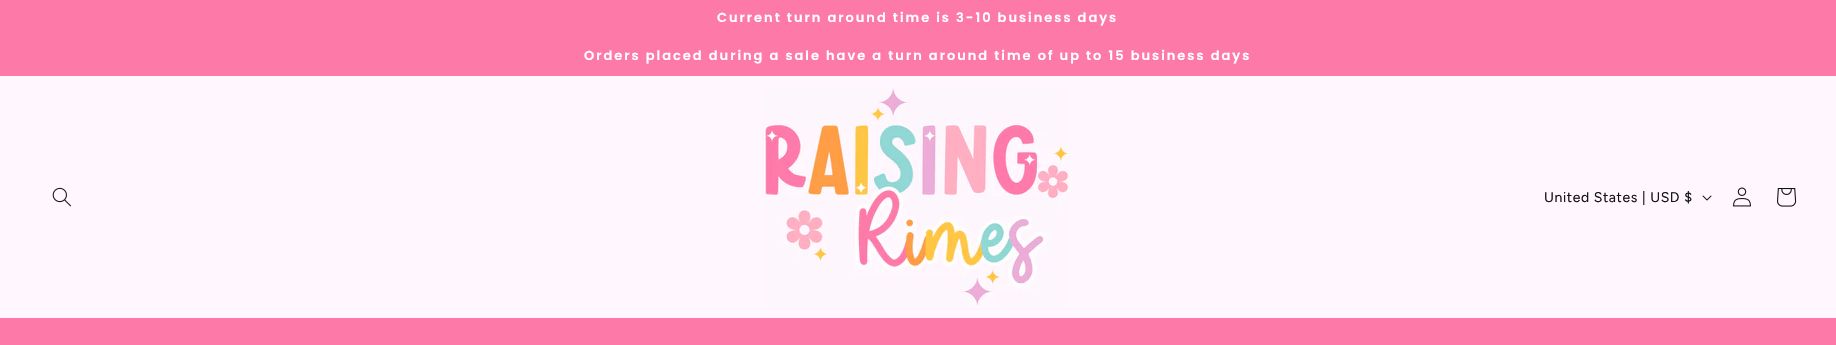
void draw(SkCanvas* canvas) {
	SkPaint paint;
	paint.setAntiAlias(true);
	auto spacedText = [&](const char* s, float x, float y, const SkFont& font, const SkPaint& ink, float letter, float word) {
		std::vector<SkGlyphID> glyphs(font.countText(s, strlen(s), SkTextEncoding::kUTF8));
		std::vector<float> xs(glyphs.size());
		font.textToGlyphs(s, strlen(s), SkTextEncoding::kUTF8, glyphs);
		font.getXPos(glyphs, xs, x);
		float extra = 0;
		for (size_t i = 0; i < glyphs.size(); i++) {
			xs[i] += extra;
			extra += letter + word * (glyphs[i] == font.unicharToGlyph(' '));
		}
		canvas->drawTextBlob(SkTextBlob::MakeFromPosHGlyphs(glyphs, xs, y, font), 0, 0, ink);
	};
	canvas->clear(0xfffff7fd);
	paint.setColor(0xfffd7aa8);
	canvas->drawRect(SkRect::MakeXYWH(0, 0, 1836, 76), paint);
	SkFont f1(fontMgr->matchFamilyStyle("Poppins", SkFontStyle(600, SkFontStyle::kNormal_Width, SkFontStyle::kUpright_Slant)), 13);
	f1.setSubpixel(true);
	paint.setColor(0xffffffff);
	spacedText("Current turn around time is 3-10 business days", 717, 22, f1, paint, 2, 0);
	spacedText("Orders placed during a sale have a turn around time of up to 15 business days", 584, 60, f1, paint, 2, 0);
	canvas->drawImageRect(SkImages::DeferredFromEncodedData(SkData::MakeFromFileName("img1.png")), SkRect::MakeXYWH(52, 187, 19, 20), SkSamplingOptions());
	canvas->drawImageRect(SkImages::DeferredFromEncodedData(SkData::MakeFromFileName("img2.png")), SkRect::MakeXYWH(762, 88, 308, 218), SkSamplingOptions());
	SkFont f2(fontMgr->matchFamilyStyle("Figtree", SkFontStyle::Normal()), 14);
	f2.setSubpixel(true);
	paint.setColor(0xff121212);
	spacedText("United States | USD $", 1544, 202, f2, paint, 0.6, 0);
	canvas->drawImageRect(SkImages::DeferredFromEncodedData(SkData::MakeFromFileName("img3.png")), SkRect::MakeXYWH(1702, 195, 10, 6), SkSamplingOptions());
	canvas->drawImageRect(SkImages::DeferredFromEncodedData(SkData::MakeFromFileName("img4.png")), SkRect::MakeXYWH(1733, 187, 18, 20), SkSamplingOptions());
	canvas->drawImageRect(SkImages::DeferredFromEncodedData(SkData::MakeFromFileName("img5.png")), SkRect::MakeXYWH(1777, 188, 20, 19), SkSamplingOptions());
	paint.setColor(0xfffd7aa8);
	canvas->drawRect(SkRect::MakeXYWH(0, 318, 1836, 27), paint);
}
